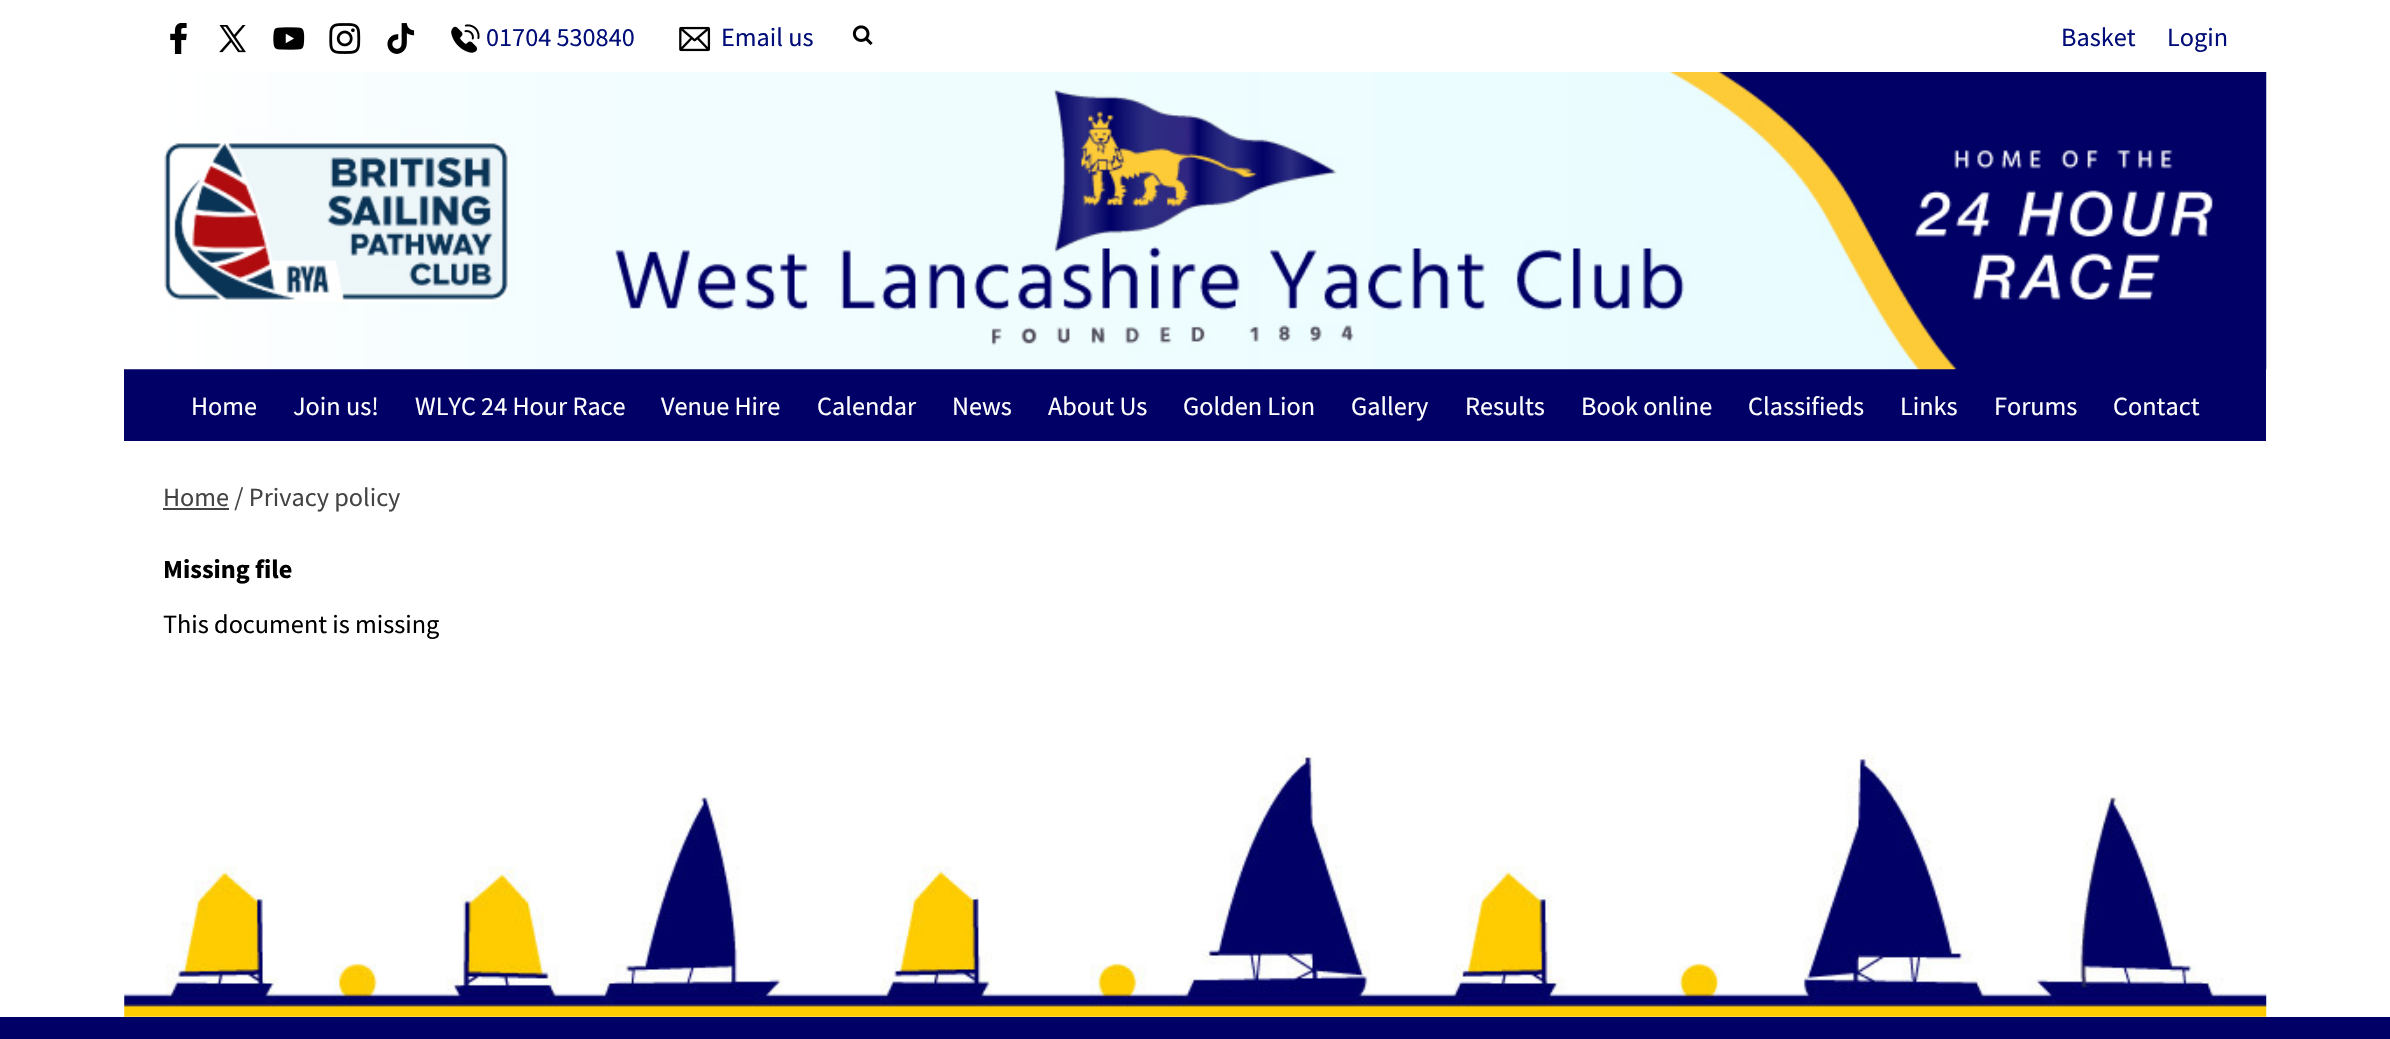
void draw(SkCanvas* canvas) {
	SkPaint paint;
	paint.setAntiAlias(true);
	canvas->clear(0xffffffff);
	paint.setColor(0xff000066);
	canvas->drawRect(SkRect::MakeXYWH(124, 369, 2142, 72), paint);
	canvas->drawImageRect(SkImages::DeferredFromEncodedData(SkData::MakeFromFileName("img9.png")), SkRect::MakeXYWH(124, 71, 2143, 299), SkSamplingOptions());
	paint.setColor(0xffffffff);
	canvas->drawRect(SkRect::MakeXYWH(470, 71, 1796, 1), paint);
	canvas->drawImageRect(SkImages::DeferredFromEncodedData(SkData::MakeFromFileName("img1.png")), SkRect::MakeXYWH(170, 23, 17, 31), SkSamplingOptions());
	canvas->drawImageRect(SkImages::DeferredFromEncodedData(SkData::MakeFromFileName("img2.png")), SkRect::MakeXYWH(219, 25, 27, 28), SkSamplingOptions());
	canvas->drawImageRect(SkImages::DeferredFromEncodedData(SkData::MakeFromFileName("img3.png")), SkRect::MakeXYWH(273, 27, 32, 23), SkSamplingOptions());
	canvas->drawImageRect(SkImages::DeferredFromEncodedData(SkData::MakeFromFileName("img4.png")), SkRect::MakeXYWH(329, 23, 32, 31), SkSamplingOptions());
	canvas->drawImageRect(SkImages::DeferredFromEncodedData(SkData::MakeFromFileName("img5.png")), SkRect::MakeXYWH(387, 23, 28, 31), SkSamplingOptions());
	canvas->drawImageRect(SkImages::DeferredFromEncodedData(SkData::MakeFromFileName("img6.png")), SkRect::MakeXYWH(451, 24, 29, 29), SkSamplingOptions());
	SkFont f1(fontMgr->matchFamilyStyle("Source Sans Pro", SkFontStyle::Normal()), 26.25);
	f1.setSubpixel(true);
	paint.setColor(0xff000d78);
	canvas->drawString("01704 530840", 486, 46, f1, paint);
	canvas->drawImageRect(SkImages::DeferredFromEncodedData(SkData::MakeFromFileName("img7.png")), SkRect::MakeXYWH(679, 26, 32, 26), SkSamplingOptions());
	canvas->drawString("Email us", 721, 46, f1, paint);
	canvas->drawImageRect(SkImages::DeferredFromEncodedData(SkData::MakeFromFileName("img8.png")), SkRect::MakeXYWH(852, 25, 21, 20), SkSamplingOptions());
	canvas->drawString("Basket", 2061, 46, f1, paint);
	canvas->drawString("Login", 2167, 46, f1, paint);
	paint.setColor(0xffffffff);
	canvas->drawString("Home", 191, 415, f1, paint);
	canvas->drawString("Join us!", 293, 415, f1, paint);
	canvas->drawString("WLYC 24 Hour Race", 415, 415, f1, paint);
	canvas->drawString("Venue Hire", 661, 415, f1, paint);
	canvas->drawString("Calendar", 817, 415, f1, paint);
	canvas->drawString("News", 952, 415, f1, paint);
	canvas->drawString("About Us", 1048, 415, f1, paint);
	canvas->drawString("Golden Lion", 1183, 415, f1, paint);
	canvas->drawString("Gallery", 1351, 415, f1, paint);
	canvas->drawString("Results", 1465, 415, f1, paint);
	canvas->drawString("Book online", 1581, 415, f1, paint);
	canvas->drawString("Classifieds", 1748, 415, f1, paint);
	canvas->drawString("Links", 1900, 415, f1, paint);
	canvas->drawString("Forums", 1994, 415, f1, paint);
	canvas->drawString("Contact", 2113, 415, f1, paint);
	paint.setColor(0xff444444);
	canvas->drawRect(SkRect::MakeXYWH(163, 508, 66, 2), paint);
	canvas->drawString("Home / Privacy policy", 163, 506, f1, paint);
	SkFont f2(fontMgr->matchFamilyStyle("Source Sans Pro", SkFontStyle::Bold()), 26.25);
	f2.setSubpixel(true);
	paint.setColor(0xff000000);
	canvas->drawString("Missing file", 163, 578, f2, paint);
	canvas->drawString("This document is missing", 163, 633, f1, paint);
	canvas->drawImageRect(SkImages::DeferredFromEncodedData(SkData::MakeFromFileName("img10.png")), SkRect::MakeXYWH(124, 754, 2143, 263), SkSamplingOptions());
	paint.setColor(0xff000066);
	canvas->drawRect(SkRect::MakeXYWH(0, 1017, 2390, 22), paint);
}
